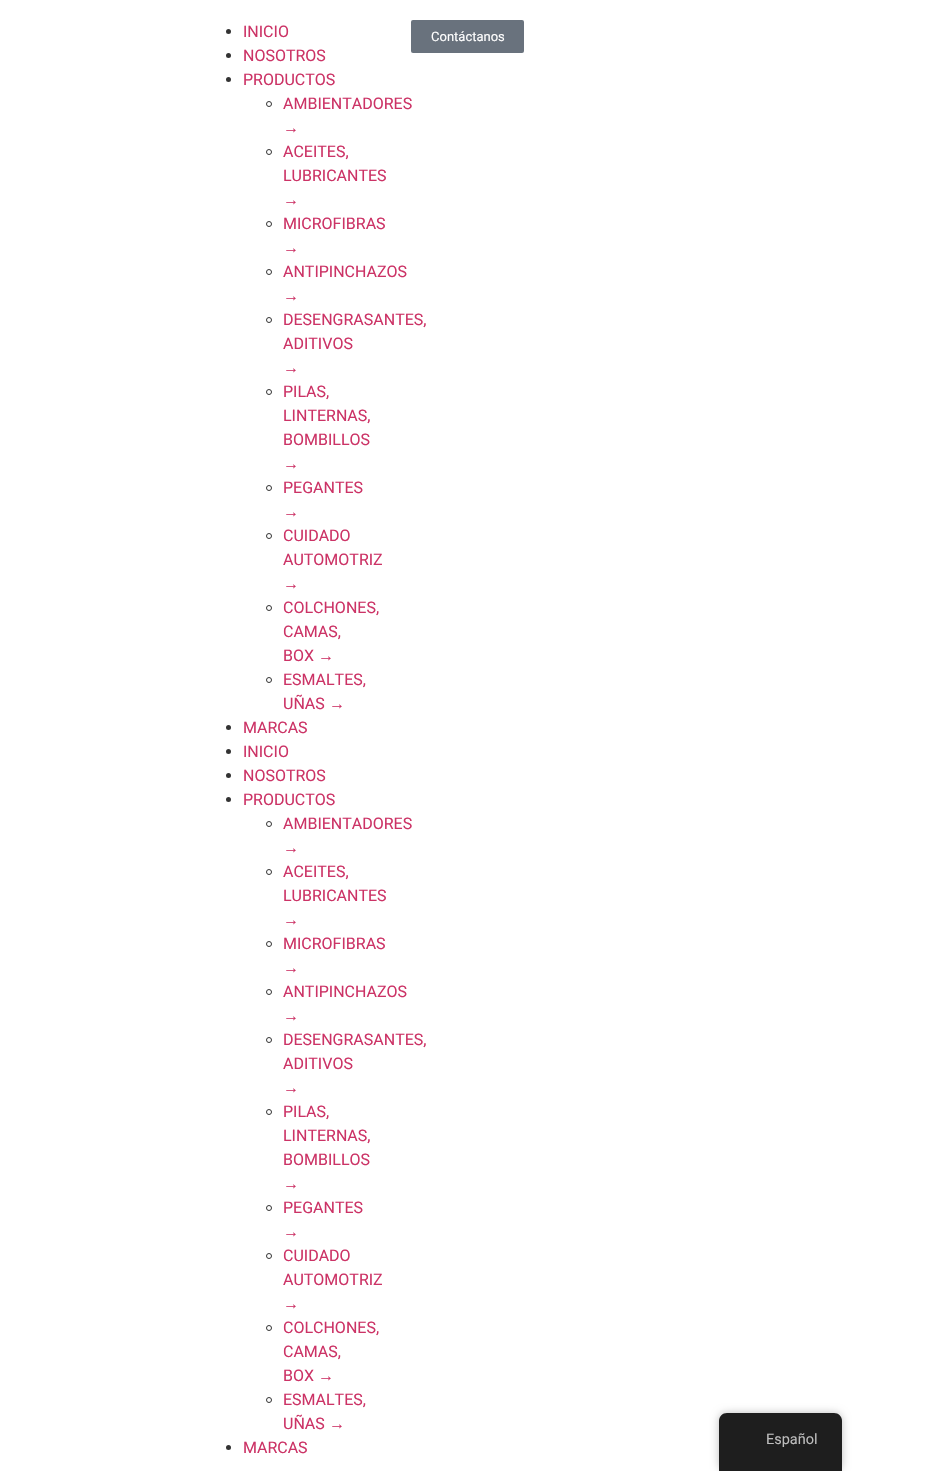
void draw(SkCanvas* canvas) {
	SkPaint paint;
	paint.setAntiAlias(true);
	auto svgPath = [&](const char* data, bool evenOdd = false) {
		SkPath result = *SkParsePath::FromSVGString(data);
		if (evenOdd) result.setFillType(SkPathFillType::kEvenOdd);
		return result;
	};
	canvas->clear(0xffffffff);
	paint.setColor(0xff333333);
	canvas->drawCircle(228.5, 31.5, 2.5, paint);
	SkFont f1(fontMgr->matchFamilyStyle("Roboto", SkFontStyle::Normal()), 16);
	f1.setSubpixel(true);
	paint.setColor(0xffcc3366);
	canvas->drawString("INICIO", 243, 37, f1, paint);
	paint.setColor(0xff333333);
	canvas->drawCircle(228.5, 55.5, 2.5, paint);
	paint.setColor(0xffcc3366);
	canvas->drawString("NOSOTROS", 243, 61, f1, paint);
	paint.setColor(0xff333333);
	canvas->drawCircle(228.5, 79.5, 2.5, paint);
	paint.setColor(0xffcc3366);
	canvas->drawString("PRODUCTOS", 243, 85, f1, paint);
	paint.setStroke(true);
	paint.setStrokeWidth(1);
	paint.setColor(0xff333333);
	canvas->drawCircle(269, 104, 2.5, paint);
	paint.setStroke(false);
	paint.setColor(0xffcc3366);
	canvas->drawString("AMBIENTADORES", 283, 109, f1, paint);
	SkFont f2(fontMgr->matchFamilyStyle("Liberation Sans", SkFontStyle::Normal()), 16);
	f2.setSubpixel(true);
	canvas->drawString("→", 283, 133, f2, paint);
	paint.setStroke(true);
	paint.setColor(0xff333333);
	canvas->drawCircle(269, 152, 2.5, paint);
	paint.setStroke(false);
	paint.setColor(0xffcc3366);
	canvas->drawString("ACEITES,", 283, 157, f1, paint);
	canvas->drawString("LUBRICANTES", 283, 181, f1, paint);
	canvas->drawString("→", 283, 205, f2, paint);
	paint.setStroke(true);
	paint.setColor(0xff333333);
	canvas->drawCircle(269, 224, 2.5, paint);
	paint.setStroke(false);
	paint.setColor(0xffcc3366);
	canvas->drawString("MICROFIBRAS", 283, 229, f1, paint);
	canvas->drawString("→", 283, 253, f2, paint);
	paint.setStroke(true);
	paint.setColor(0xff333333);
	canvas->drawCircle(269, 272, 2.5, paint);
	paint.setStroke(false);
	paint.setColor(0xffcc3366);
	canvas->drawString("ANTIPINCHAZOS", 283, 277, f1, paint);
	canvas->drawString("→", 283, 301, f2, paint);
	paint.setStroke(true);
	paint.setColor(0xff333333);
	canvas->drawCircle(269, 320, 2.5, paint);
	paint.setStroke(false);
	paint.setColor(0xffcc3366);
	canvas->drawString("DESENGRASANTES,", 283, 325, f1, paint);
	canvas->drawString("ADITIVOS", 283, 349, f1, paint);
	canvas->drawString("→", 283, 373, f2, paint);
	paint.setStroke(true);
	paint.setColor(0xff333333);
	canvas->drawCircle(269, 392, 2.5, paint);
	paint.setStroke(false);
	paint.setColor(0xffcc3366);
	canvas->drawString("PILAS,", 283, 397, f1, paint);
	canvas->drawString("LINTERNAS,", 283, 421, f1, paint);
	canvas->drawString("BOMBILLOS", 283, 445, f1, paint);
	canvas->drawString("→", 283, 469, f2, paint);
	paint.setStroke(true);
	paint.setColor(0xff333333);
	canvas->drawCircle(269, 488, 2.5, paint);
	paint.setStroke(false);
	paint.setColor(0xffcc3366);
	canvas->drawString("PEGANTES", 283, 493, f1, paint);
	canvas->drawString("→", 283, 517, f2, paint);
	paint.setStroke(true);
	paint.setColor(0xff333333);
	canvas->drawCircle(269, 536, 2.5, paint);
	paint.setStroke(false);
	paint.setColor(0xffcc3366);
	canvas->drawString("CUIDADO", 283, 541, f1, paint);
	canvas->drawString("AUTOMOTRIZ", 283, 565, f1, paint);
	canvas->drawString("→", 283, 589, f2, paint);
	paint.setStroke(true);
	paint.setColor(0xff333333);
	canvas->drawCircle(269, 608, 2.5, paint);
	paint.setStroke(false);
	paint.setColor(0xffcc3366);
	canvas->drawString("COLCHONES,", 283, 613, f1, paint);
	canvas->drawString("CAMAS,", 283, 637, f1, paint);
	canvas->drawString("BOX", 283, 661, f1, paint);
	canvas->drawString("→", 318, 661, f2, paint);
	paint.setStroke(true);
	paint.setColor(0xff333333);
	canvas->drawCircle(269, 680, 2.5, paint);
	paint.setStroke(false);
	paint.setColor(0xffcc3366);
	canvas->drawString("ESMALTES,", 283, 685, f1, paint);
	canvas->drawString("UÑAS", 283, 709, f1, paint);
	canvas->drawString("→", 329, 709, f2, paint);
	paint.setColor(0xff333333);
	canvas->drawCircle(228.5, 727.5, 2.5, paint);
	paint.setColor(0xffcc3366);
	canvas->drawString("MARCAS", 243, 733, f1, paint);
	paint.setColor(0xff333333);
	canvas->drawCircle(228.5, 751.5, 2.5, paint);
	paint.setColor(0xffcc3366);
	canvas->drawString("INICIO", 243, 757, f1, paint);
	paint.setColor(0xff333333);
	canvas->drawCircle(228.5, 775.5, 2.5, paint);
	paint.setColor(0xffcc3366);
	canvas->drawString("NOSOTROS", 243, 781, f1, paint);
	paint.setColor(0xff333333);
	canvas->drawCircle(228.5, 799.5, 2.5, paint);
	paint.setColor(0xffcc3366);
	canvas->drawString("PRODUCTOS", 243, 805, f1, paint);
	paint.setStroke(true);
	paint.setColor(0xff333333);
	canvas->drawCircle(269, 824, 2.5, paint);
	paint.setStroke(false);
	paint.setColor(0xffcc3366);
	canvas->drawString("AMBIENTADORES", 283, 829, f1, paint);
	canvas->drawString("→", 283, 853, f2, paint);
	paint.setStroke(true);
	paint.setColor(0xff333333);
	canvas->drawCircle(269, 872, 2.5, paint);
	paint.setStroke(false);
	paint.setColor(0xffcc3366);
	canvas->drawString("ACEITES,", 283, 877, f1, paint);
	canvas->drawString("LUBRICANTES", 283, 901, f1, paint);
	canvas->drawString("→", 283, 925, f2, paint);
	paint.setStroke(true);
	paint.setColor(0xff333333);
	canvas->drawCircle(269, 944, 2.5, paint);
	paint.setStroke(false);
	paint.setColor(0xffcc3366);
	canvas->drawString("MICROFIBRAS", 283, 949, f1, paint);
	canvas->drawString("→", 283, 973, f2, paint);
	paint.setStroke(true);
	paint.setColor(0xff333333);
	canvas->drawCircle(269, 992, 2.5, paint);
	paint.setStroke(false);
	paint.setColor(0xffcc3366);
	canvas->drawString("ANTIPINCHAZOS", 283, 997, f1, paint);
	canvas->drawString("→", 283, 1021, f2, paint);
	paint.setStroke(true);
	paint.setColor(0xff333333);
	canvas->drawCircle(269, 1040, 2.5, paint);
	paint.setStroke(false);
	paint.setColor(0xffcc3366);
	canvas->drawString("DESENGRASANTES,", 283, 1045, f1, paint);
	canvas->drawString("ADITIVOS", 283, 1069, f1, paint);
	canvas->drawString("→", 283, 1093, f2, paint);
	paint.setStroke(true);
	paint.setColor(0xff333333);
	canvas->drawCircle(269, 1112, 2.5, paint);
	paint.setStroke(false);
	paint.setColor(0xffcc3366);
	canvas->drawString("PILAS,", 283, 1117, f1, paint);
	canvas->drawString("LINTERNAS,", 283, 1141, f1, paint);
	canvas->drawString("BOMBILLOS", 283, 1165, f1, paint);
	canvas->drawString("→", 283, 1189, f2, paint);
	paint.setStroke(true);
	paint.setColor(0xff333333);
	canvas->drawCircle(269, 1208, 2.5, paint);
	paint.setStroke(false);
	paint.setColor(0xffcc3366);
	canvas->drawString("PEGANTES", 283, 1213, f1, paint);
	canvas->drawString("→", 283, 1237, f2, paint);
	paint.setStroke(true);
	paint.setColor(0xff333333);
	canvas->drawCircle(269, 1256, 2.5, paint);
	paint.setStroke(false);
	paint.setColor(0xffcc3366);
	canvas->drawString("CUIDADO", 283, 1261, f1, paint);
	canvas->drawString("AUTOMOTRIZ", 283, 1285, f1, paint);
	canvas->drawString("→", 283, 1309, f2, paint);
	paint.setStroke(true);
	paint.setColor(0xff333333);
	canvas->drawCircle(269, 1328, 2.5, paint);
	paint.setStroke(false);
	paint.setColor(0xffcc3366);
	canvas->drawString("COLCHONES,", 283, 1333, f1, paint);
	canvas->drawString("CAMAS,", 283, 1357, f1, paint);
	canvas->drawString("BOX", 283, 1381, f1, paint);
	canvas->drawString("→", 318, 1381, f2, paint);
	paint.setStroke(true);
	paint.setColor(0xff333333);
	canvas->drawCircle(269, 1400, 2.5, paint);
	paint.setStroke(false);
	paint.setColor(0xffcc3366);
	canvas->drawString("ESMALTES,", 283, 1405, f1, paint);
	canvas->drawString("UÑAS", 283, 1429, f1, paint);
	canvas->drawString("→", 329, 1429, f2, paint);
	paint.setColor(0xff333333);
	canvas->drawCircle(228.5, 1447.5, 2.5, paint);
	paint.setColor(0xffcc3366);
	canvas->drawString("MARCAS", 243, 1453, f1, paint);
	paint.setColor(0xff69727d);
	canvas->drawRoundRect(SkRect::MakeXYWH(411, 20, 113, 33), 2, 2, paint);
	SkFont f3(fontMgr->matchFamilyStyle("Roboto", SkFontStyle::Normal()), 13);
	f3.setSubpixel(true);
	paint.setColor(0xffffffff);
	canvas->drawString("Contáctanos", 431, 41, f3, paint);
	paint.setColor(0x40000000);
	paint.setMaskFilter(SkMaskFilter::MakeBlur(kNormal_SkBlurStyle, 4));
	canvas->drawRoundRect(SkRect::MakeXYWH(719, 1413, 123, 58), 8, 8, paint);
	paint.setMaskFilter(nullptr);
	paint.setColor(0xff1e1e1e);
	canvas->drawPath(svgPath("M727 1413H834C838.5 1413 842 1416.5 842 1421V1471H719V1421C719 1416.5 722.5 1413 727 1413Z"), paint);
	SkFont f4(fontMgr->matchFamilyStyle("Roboto", SkFontStyle::Normal()), 14.5);
	f4.setSubpixel(true);
	paint.setColor(0xffbdbdbd);
	canvas->drawString("Español", 766, 1444, f4, paint);
}
